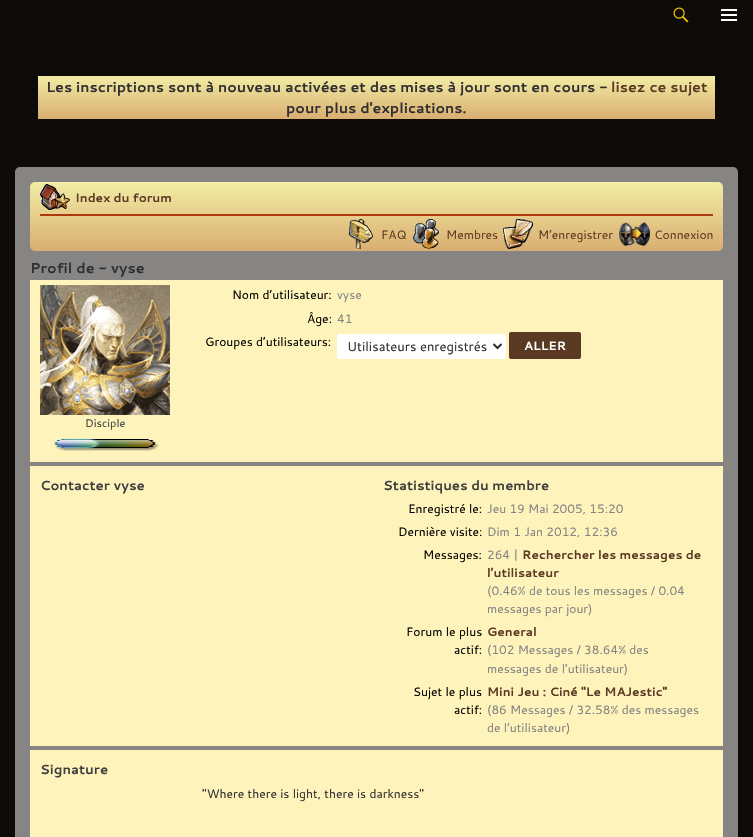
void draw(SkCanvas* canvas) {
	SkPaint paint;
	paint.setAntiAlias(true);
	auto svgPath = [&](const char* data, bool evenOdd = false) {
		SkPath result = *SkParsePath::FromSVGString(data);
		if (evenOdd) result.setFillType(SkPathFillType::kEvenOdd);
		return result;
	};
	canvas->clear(0xff0d0a07);
	canvas->drawImageRect(SkImages::DeferredFromEncodedData(SkData::MakeFromFileName("img1.png")), SkRect::MakeXYWH(673, 7, 16, 16), SkSamplingOptions());
	canvas->drawImageRect(SkImages::DeferredFromEncodedData(SkData::MakeFromFileName("img2.png")), SkRect::MakeXYWH(721, 9, 16, 12), SkSamplingOptions());
	{
		const SkColor colors[] = {0xfff2eca4, 0xffd9ae71};
		const float stops[] = {0, 1};
		const SkPoint ends[] = {{377, 76}, {377, 119}};
		paint.setShader(SkGradientShader::MakeLinear(ends, colors, stops, 2, SkTileMode::kClamp));
		paint.setAlpha(255);
	}
	canvas->drawRect(SkRect::MakeXYWH(38, 76, 677, 43), paint);
	SkFont f1(fontMgr->matchFamilyStyle("Cantarell", SkFontStyle::Bold()), 14.3);
	f1.setSubpixel(true);
	paint.setShader(nullptr);
	paint.setColor(0xff303030);
	canvas->drawString("Les inscriptions sont à nouveau activées et des mises à jour sont en cours -", 46, 92, f1, paint);
	paint.setColor(0xff5a3a22);
	canvas->drawString("lisez ce sujet", 611, 92, f1, paint);
	paint.setColor(0xff303030);
	canvas->drawString("pour plus d'explications.", 286, 113, f1, paint);
	paint.setColor(0xff868583);
	canvas->drawRoundRect(SkRect::MakeXYWH(15, 167, 723, 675), 5, 5, paint);
	{
		const SkColor colors[] = {0xfff2eca4, 0xffd9ae71};
		const float stops[] = {0, 1};
		const SkPoint ends[] = {{377, 182}, {377, 251}};
		paint.setShader(SkGradientShader::MakeLinear(ends, colors, stops, 2, SkTileMode::kClamp));
		paint.setAlpha(255);
	}
	canvas->drawRoundRect(SkRect::MakeXYWH(30, 182, 693, 69), 5, 5, paint);
	paint.setShader(nullptr);
	paint.setColor(0xffad390e);
	canvas->drawRect(SkRect::MakeXYWH(40, 214, 673, 2), paint);
	canvas->drawImageRect(SkImages::DeferredFromEncodedData(SkData::MakeFromFileName("img3.png")), SkRect::MakeXYWH(40, 184, 30, 26), SkSamplingOptions());
	SkFont f2(fontMgr->matchFamilyStyle("Cantarell", SkFontStyle::Bold()), 12.1);
	f2.setSubpixel(true);
	paint.setColor(0xff5a3a22);
	canvas->drawString("Index du forum", 75, 202, f2, paint);
	canvas->drawImageRect(SkImages::DeferredFromEncodedData(SkData::MakeFromFileName("img4.png")), SkRect::MakeXYWH(349, 219, 24, 30), SkSamplingOptions());
	SkFont f3(fontMgr->matchFamilyStyle("Cantarell", SkFontStyle::Normal()), 12.1);
	f3.setSubpixel(true);
	canvas->drawString("FAQ", 381, 239, f3, paint);
	canvas->drawImageRect(SkImages::DeferredFromEncodedData(SkData::MakeFromFileName("img5.png")), SkRect::MakeXYWH(413, 219, 26, 30), SkSamplingOptions());
	canvas->drawString("Membres", 446, 239, f3, paint);
	canvas->drawImageRect(SkImages::DeferredFromEncodedData(SkData::MakeFromFileName("img6.png")), SkRect::MakeXYWH(503, 219, 30, 30), SkSamplingOptions());
	canvas->drawString("M’enregistrer", 538, 239, f3, paint);
	canvas->drawImageRect(SkImages::DeferredFromEncodedData(SkData::MakeFromFileName("img7.png")), SkRect::MakeXYWH(619, 222, 31, 25), SkSamplingOptions());
	canvas->drawString("Connexion", 654, 239, f3, paint);
	paint.setColor(0xff303030);
	canvas->drawString("Profil de - vyse", 30, 273, f1, paint);
	paint.setColor(0xfffff3bc);
	canvas->drawRect(SkRect::MakeXYWH(30, 280, 693, 182), paint);
	paint.setColor(0xff000000);
	canvas->drawString("Nom d’utilisateur:", 232, 299, f3, paint);
	paint.setColor(0xff828282);
	canvas->drawString("vyse", 337, 299, f3, paint);
	paint.setColor(0xff000000);
	canvas->drawString("Âge:", 307, 323, f3, paint);
	paint.setColor(0xff828282);
	canvas->drawString("41", 337, 323, f3, paint);
	paint.setColor(0xff000000);
	canvas->drawString("Groupes d’utilisateurs:", 205, 346, f3, paint);
	paint.setColor(0xffffffff);
	canvas->drawRoundRect(SkRect::MakeXYWH(337, 334, 169, 25), 2, 2, paint);
	paint.setStroke(true);
	paint.setStrokeWidth(2);
	paint.setColor(0xff303030);
	canvas->drawPath(svgPath("M493.5 344L497.5 348L501.5 344"), paint);
	SkFont f4(fontMgr->matchFamilyStyle("Cantarell", SkFontStyle::Normal()), 13);
	f4.setSubpixel(true);
	paint.setStroke(false);
	canvas->drawString("Utilisateurs enregistrés", 347, 351, f4, paint);
	paint.setColor(0xff5a3a22);
	canvas->drawRoundRect(SkRect::MakeXYWH(509, 332, 72, 27), 2, 2, paint);
	SkFont f5(fontMgr->matchFamilyStyle("Cantarell", SkFontStyle::Bold()), 12);
	f5.setSubpixel(true);
	paint.setColor(0xffffffff);
	canvas->drawString("ALLER", 524, 350, f5, paint);
	canvas->drawImageRect(SkImages::DeferredFromEncodedData(SkData::MakeFromFileName("img8.png")), SkRect::MakeXYWH(40, 285, 130, 130), SkSamplingOptions());
	SkFont f6(fontMgr->matchFamilyStyle("Cantarell", SkFontStyle::Normal()), 11);
	f6.setSubpixel(true);
	paint.setColor(0xff3f3f3f);
	canvas->drawString("Disciple", 85, 427, f6, paint);
	canvas->drawImageRect(SkImages::DeferredFromEncodedData(SkData::MakeFromFileName("img9.png")), SkRect::MakeXYWH(54, 438, 105, 13), SkSamplingOptions());
	paint.setColor(0xfffff3bc);
	canvas->drawRect(SkRect::MakeXYWH(30, 466, 693, 280), paint);
	SkFont f7(fontMgr->matchFamilyStyle("Cantarell", SkFontStyle::Bold()), 13.25);
	f7.setSubpixel(true);
	paint.setColor(0xff3f3f3f);
	canvas->drawString("Contacter vyse", 40, 490, f7, paint);
	canvas->drawString("Statistiques du membre", 383, 490, f7, paint);
	paint.setColor(0xff000000);
	canvas->drawString("Enregistré le:", 408, 513, f3, paint);
	paint.setColor(0xff828282);
	canvas->drawString("Jeu 19 Mai 2005, 15:20", 487, 513, f3, paint);
	paint.setColor(0xff000000);
	canvas->drawString("Dernière visite:", 398, 536, f3, paint);
	paint.setColor(0xff828282);
	canvas->drawString("Dim 1 Jan 2012, 12:36", 487, 536, f3, paint);
	paint.setColor(0xff000000);
	canvas->drawString("Messages:", 423, 559, f3, paint);
	paint.setColor(0xff828282);
	canvas->drawString("264 |", 487, 559, f3, paint);
	paint.setColor(0xff5a3a22);
	canvas->drawString("Rechercher les messages de", 522, 559, f2, paint);
	canvas->drawString("l’utilisateur", 487, 577, f2, paint);
	paint.setColor(0xff828282);
	canvas->drawString("(0.46% de tous les messages / 0.04", 487, 595, f3, paint);
	canvas->drawString("messages par jour)", 487, 613, f3, paint);
	paint.setColor(0xff000000);
	canvas->drawString("Forum le plus", 406, 636, f3, paint);
	canvas->drawString("actif:", 454, 654, f3, paint);
	paint.setColor(0xff5a3a22);
	canvas->drawString("General", 487, 636, f2, paint);
	paint.setColor(0xff828282);
	canvas->drawString("(102 Messages / 38.64% des", 487, 654, f3, paint);
	canvas->drawString("messages de l’utilisateur)", 487, 673, f3, paint);
	paint.setColor(0xff000000);
	canvas->drawString("Sujet le plus", 413, 696, f3, paint);
	canvas->drawString("actif:", 454, 714, f3, paint);
	paint.setColor(0xff5a3a22);
	canvas->drawString("Mini Jeu : Ciné \"Le MAJestic\"", 487, 696, f2, paint);
	paint.setColor(0xff828282);
	canvas->drawString("(86 Messages / 32.58% des messages", 487, 714, f3, paint);
	canvas->drawString("de l’utilisateur)", 487, 732, f3, paint);
	paint.setColor(0xfffff3bc);
	canvas->drawRect(SkRect::MakeXYWH(30, 750, 693, 87), paint);
	paint.setColor(0xff3f3f3f);
	canvas->drawString("Signature", 40, 774, f7, paint);
	paint.setColor(0xff303030);
	canvas->drawString("\"Where there is light, there is darkness\"", 202, 798, f3, paint);
}
